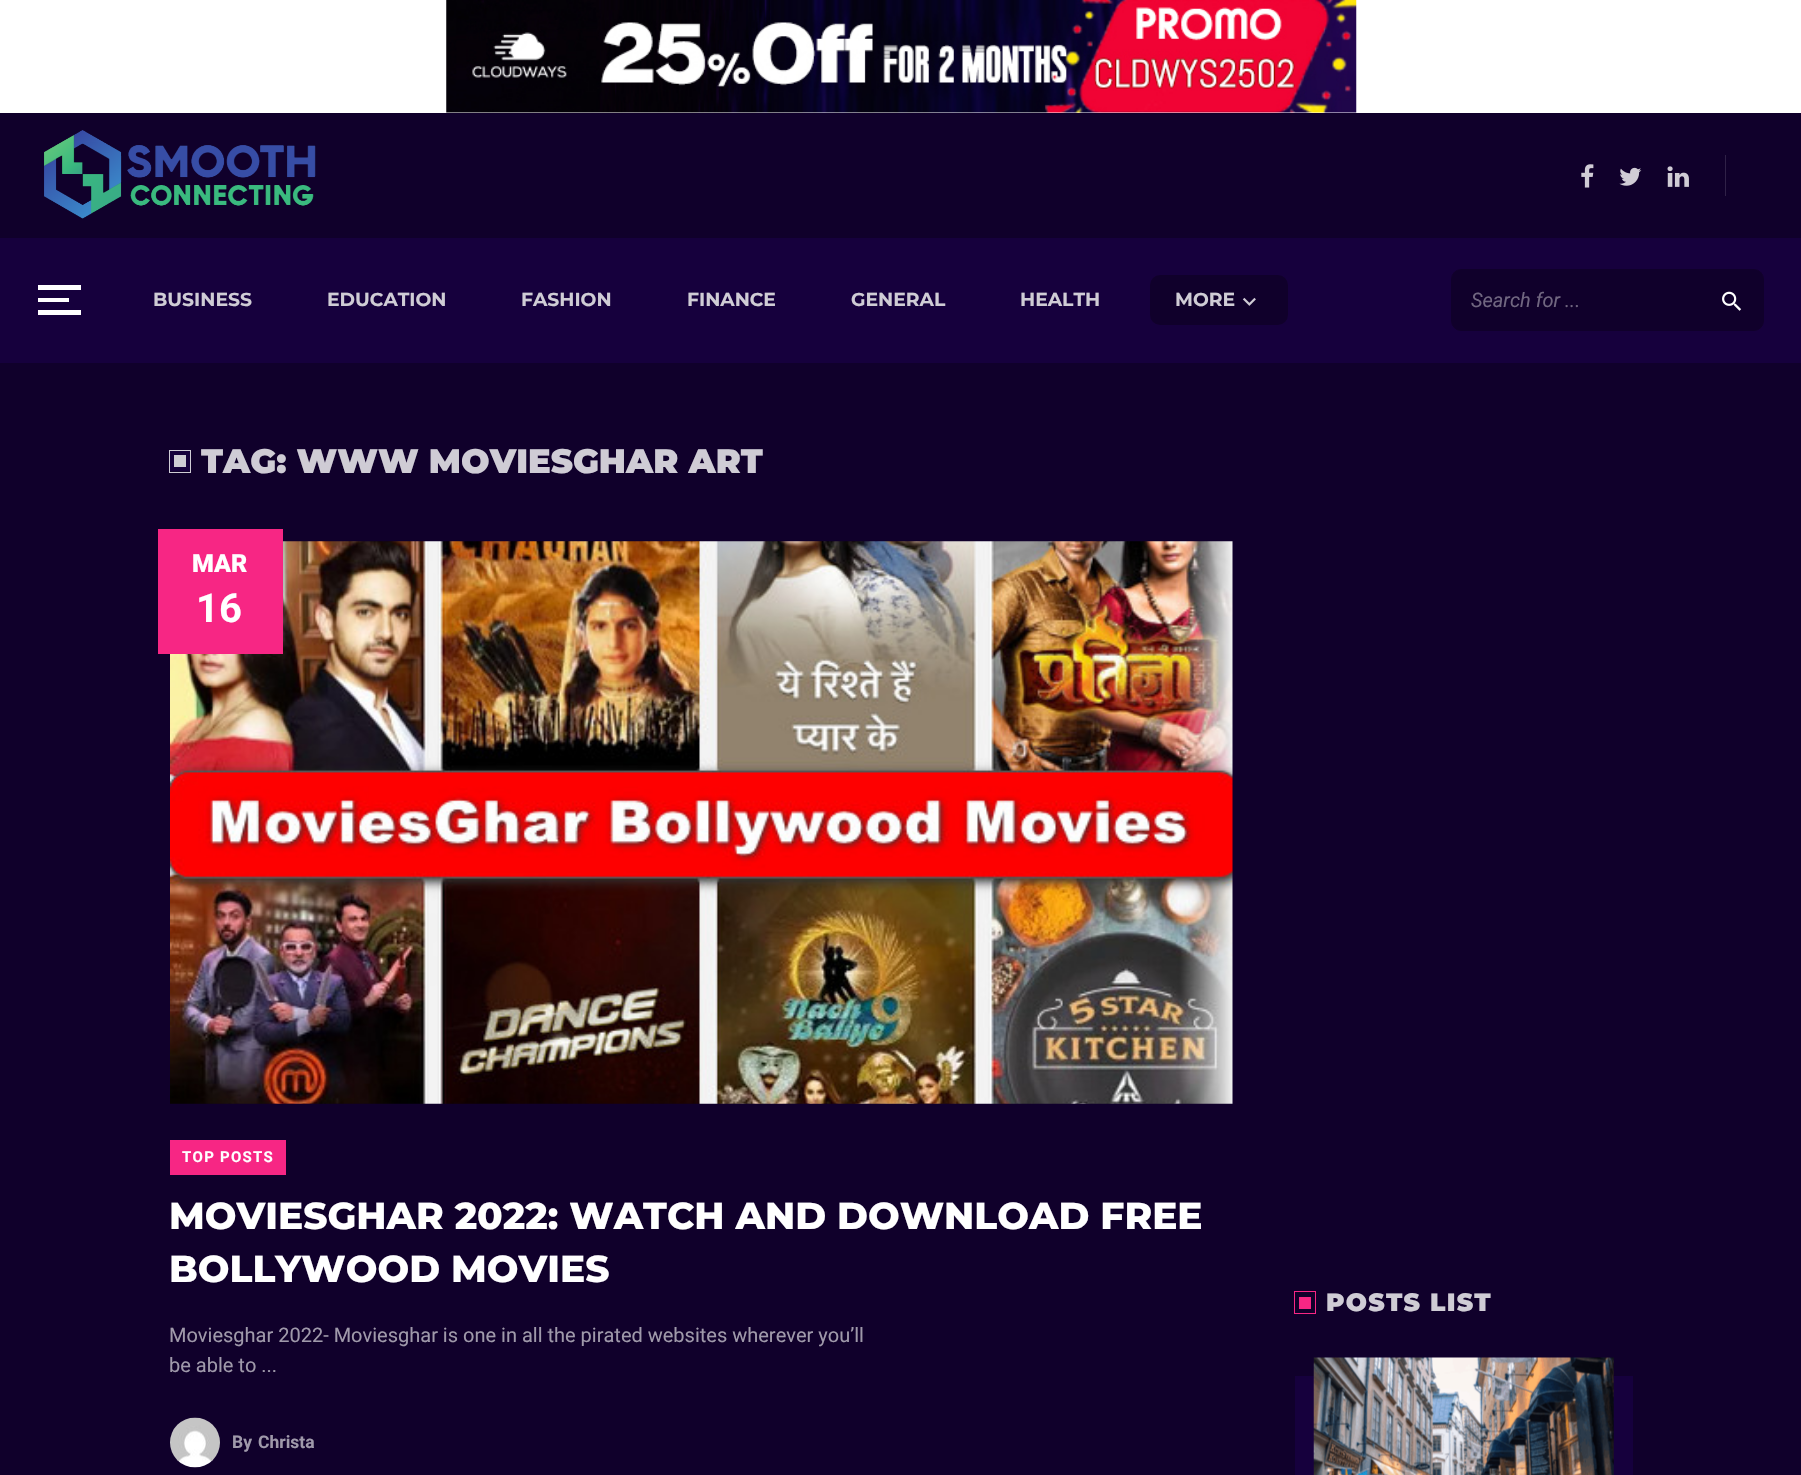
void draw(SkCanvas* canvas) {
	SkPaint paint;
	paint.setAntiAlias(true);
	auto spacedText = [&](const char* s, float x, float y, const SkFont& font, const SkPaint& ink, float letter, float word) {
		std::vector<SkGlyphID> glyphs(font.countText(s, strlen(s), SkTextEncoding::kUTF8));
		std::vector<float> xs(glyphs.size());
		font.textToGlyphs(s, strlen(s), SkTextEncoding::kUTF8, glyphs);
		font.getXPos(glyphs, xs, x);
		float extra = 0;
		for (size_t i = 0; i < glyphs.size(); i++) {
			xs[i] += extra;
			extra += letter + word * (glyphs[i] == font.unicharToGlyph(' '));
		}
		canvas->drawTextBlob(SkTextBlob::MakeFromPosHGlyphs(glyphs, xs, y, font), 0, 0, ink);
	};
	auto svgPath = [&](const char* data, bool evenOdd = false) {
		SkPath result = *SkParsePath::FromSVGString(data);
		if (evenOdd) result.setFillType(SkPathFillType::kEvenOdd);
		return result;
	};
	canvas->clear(0xffffffff);
	canvas->drawImageRect(SkImages::DeferredFromEncodedData(SkData::MakeFromFileName("img1.png")), SkRect::MakeXYWH(446, 0, 911, 113), SkSamplingOptions());
	paint.setColor(0xff10002b);
	canvas->drawRect(SkRect::MakeXYWH(0, 113, 1801, 1362), paint);
	canvas->drawImageRect(SkImages::DeferredFromEncodedData(SkData::MakeFromFileName("img2.png")), SkRect::MakeXYWH(44, 130, 272, 89), SkSamplingOptions());
	canvas->drawImageRect(SkImages::DeferredFromEncodedData(SkData::MakeFromFileName("img3.png")), SkRect::MakeXYWH(1581, 164, 13, 24), SkSamplingOptions());
	canvas->drawImageRect(SkImages::DeferredFromEncodedData(SkData::MakeFromFileName("img4.png")), SkRect::MakeXYWH(1619, 167, 23, 19), SkSamplingOptions());
	canvas->drawImageRect(SkImages::DeferredFromEncodedData(SkData::MakeFromFileName("img5.png")), SkRect::MakeXYWH(1667, 166, 22, 21), SkSamplingOptions());
	paint.setColor(0xff2f2147);
	canvas->drawRect(SkRect::MakeXYWH(1725, 155, 1, 41), paint);
	paint.setColor(0xff16003d);
	canvas->drawRect(SkRect::MakeXYWH(0, 238, 1801, 125), paint);
	paint.setColor(0xffffffff);
	canvas->drawPath(svgPath("M38 315H81V310H38ZM38 302H69V298H38ZM38 285V290H81V285Z"), paint);
	SkFont f1(fontMgr->matchFamilyStyle("Montserrat", SkFontStyle::Bold()), 18.75);
	f1.setSubpixel(true);
	paint.setColor(0xffcfccd5);
	canvas->drawString("BUSINESS", 153, 306, f1, paint);
	canvas->drawString("EDUCATION", 327, 306, f1, paint);
	canvas->drawString("FASHION", 521, 306, f1, paint);
	canvas->drawString("FINANCE", 687, 306, f1, paint);
	canvas->drawString("GENERAL", 851, 306, f1, paint);
	canvas->drawString("HEALTH", 1020, 306, f1, paint);
	paint.setColor(0xff10002b);
	canvas->drawRoundRect(SkRect::MakeXYWH(1150, 275, 138, 50), 10, 10, paint);
	paint.setColor(0xffcfccd5);
	canvas->drawString("MORE", 1175, 306, f1, paint);
	canvas->drawImageRect(SkImages::DeferredFromEncodedData(SkData::MakeFromFileName("img6.png")), SkRect::MakeXYWH(1242, 297, 14, 9), SkSamplingOptions());
	paint.setColor(0xff10002b);
	canvas->drawRoundRect(SkRect::MakeXYWH(1451.5, 269.5, 312, 61), 9.5, 9.5, paint);
	paint.setStroke(true);
	paint.setStrokeWidth(1);
	canvas->drawRoundRect(SkRect::MakeXYWH(1451.5, 269.5, 312, 61), 9.5, 9.5, paint);
	SkFont f2(fontMgr->matchFamilyStyle("Roboto", SkFontStyle::Italic()), 20);
	f2.setSubpixel(true);
	paint.setStroke(false);
	paint.setColor(0xff706680);
	canvas->drawString("Search for ...", 1471, 307, f2, paint);
	canvas->drawImageRect(SkImages::DeferredFromEncodedData(SkData::MakeFromFileName("img7.png")), SkRect::MakeXYWH(1722, 291, 20, 20), SkSamplingOptions());
	paint.setColor(0xffcfccd5);
	canvas->drawRect(SkRect::MakeXYWH(172, 453, 16, 16), paint);
	paint.setStroke(true);
	paint.setStrokeWidth(4);
	paint.setColor(0xff16003d);
	canvas->drawRect(SkRect::MakeXYWH(172, 453, 16, 16), paint);
	paint.setStrokeWidth(1);
	paint.setColor(0xffcfccd5);
	canvas->drawRect(SkRect::MakeXYWH(169.5, 450.5, 21, 22), paint);
	SkFont f3(fontMgr->matchFamilyStyle("Montserrat", SkFontStyle(900, SkFontStyle::kNormal_Width, SkFontStyle::kUpright_Slant)), 33.75);
	f3.setSubpixel(true);
	paint.setStroke(false);
	canvas->drawString("TAG: WWW MOVIESGHAR ART", 201, 473, f3, paint);
	canvas->drawImageRect(SkImages::DeferredFromEncodedData(SkData::MakeFromFileName("img8.png")), SkRect::MakeXYWH(170, 541, 1063, 563), SkSamplingOptions());
	paint.setColor(0xfff72684);
	canvas->drawRect(SkRect::MakeXYWH(158, 529, 125, 125), paint);
	SkFont f4(fontMgr->matchFamilyStyle("Roboto", SkFontStyle(900, SkFontStyle::kNormal_Width, SkFontStyle::kUpright_Slant)), 25);
	f4.setSubpixel(true);
	paint.setColor(0xffffffff);
	canvas->drawString("MAR", 192, 572, f4, paint);
	SkFont f5(fontMgr->matchFamilyStyle("Roboto", SkFontStyle::Bold()), 40);
	f5.setSubpixel(true);
	canvas->drawString("16", 196, 622, f5, paint);
	canvas->drawImageRect(SkImages::DeferredFromEncodedData(SkData::MakeFromFileName("img9.png")), SkRect::MakeXYWH(170, 1417, 50, 51), SkSamplingOptions());
	SkFont f6(fontMgr->matchFamilyStyle("Roboto", SkFontStyle::Bold()), 17.5);
	f6.setSubpixel(true);
	paint.setColor(0xff9f99aa);
	canvas->drawString("By", 232, 1448, f6, paint);
	canvas->drawString("Christa", 258, 1448, f6, paint);
	paint.setColor(0xfff72684);
	canvas->drawRect(SkRect::MakeXYWH(170, 1140, 116, 35), paint);
	SkFont f7(fontMgr->matchFamilyStyle("Roboto", SkFontStyle::Bold()), 15);
	f7.setSubpixel(true);
	paint.setColor(0xffffffff);
	spacedText("TOP POSTS", 182, 1162, f7, paint, 1.25, 0);
	SkFont f8(fontMgr->matchFamilyStyle("Montserrat", SkFontStyle(800, SkFontStyle::kNormal_Width, SkFontStyle::kUpright_Slant)), 37.5);
	f8.setSubpixel(true);
	canvas->drawString("MOVIESGHAR 2022: WATCH AND DOWNLOAD FREE", 169, 1229, f8, paint);
	canvas->drawString("BOLLYWOOD MOVIES", 169, 1282, f8, paint);
	SkFont f9(fontMgr->matchFamilyStyle("Roboto", SkFontStyle::Normal()), 20);
	f9.setSubpixel(true);
	paint.setColor(0xff9f99aa);
	canvas->drawString("Moviesghar 2022- Moviesghar is one in all the pirated websites wherever you’ll", 169, 1342, f9, paint);
	canvas->drawString("be able to ...", 169, 1372, f9, paint);
	paint.setColor(0xfff72684);
	canvas->drawRect(SkRect::MakeXYWH(1299, 1297, 12, 12), paint);
	paint.setStroke(true);
	canvas->drawRect(SkRect::MakeXYWH(1294.5, 1291.5, 21, 22), paint);
	SkFont f10(fontMgr->matchFamilyStyle("Montserrat", SkFontStyle(900, SkFontStyle::kNormal_Width, SkFontStyle::kUpright_Slant)), 25);
	f10.setSubpixel(true);
	paint.setStroke(false);
	paint.setColor(0xffcfccd5);
	spacedText("POSTS LIST", 1326, 1311, f10, paint, 1.25, 0);
	paint.setColor(0xff16003d);
	canvas->drawRect(SkRect::MakeXYWH(1295, 1376, 338, 99), paint);
	canvas->drawImageRect(SkImages::DeferredFromEncodedData(SkData::MakeFromFileName("img10.png")), SkRect::MakeXYWH(1313, 1357, 301, 118), SkSamplingOptions());
}
